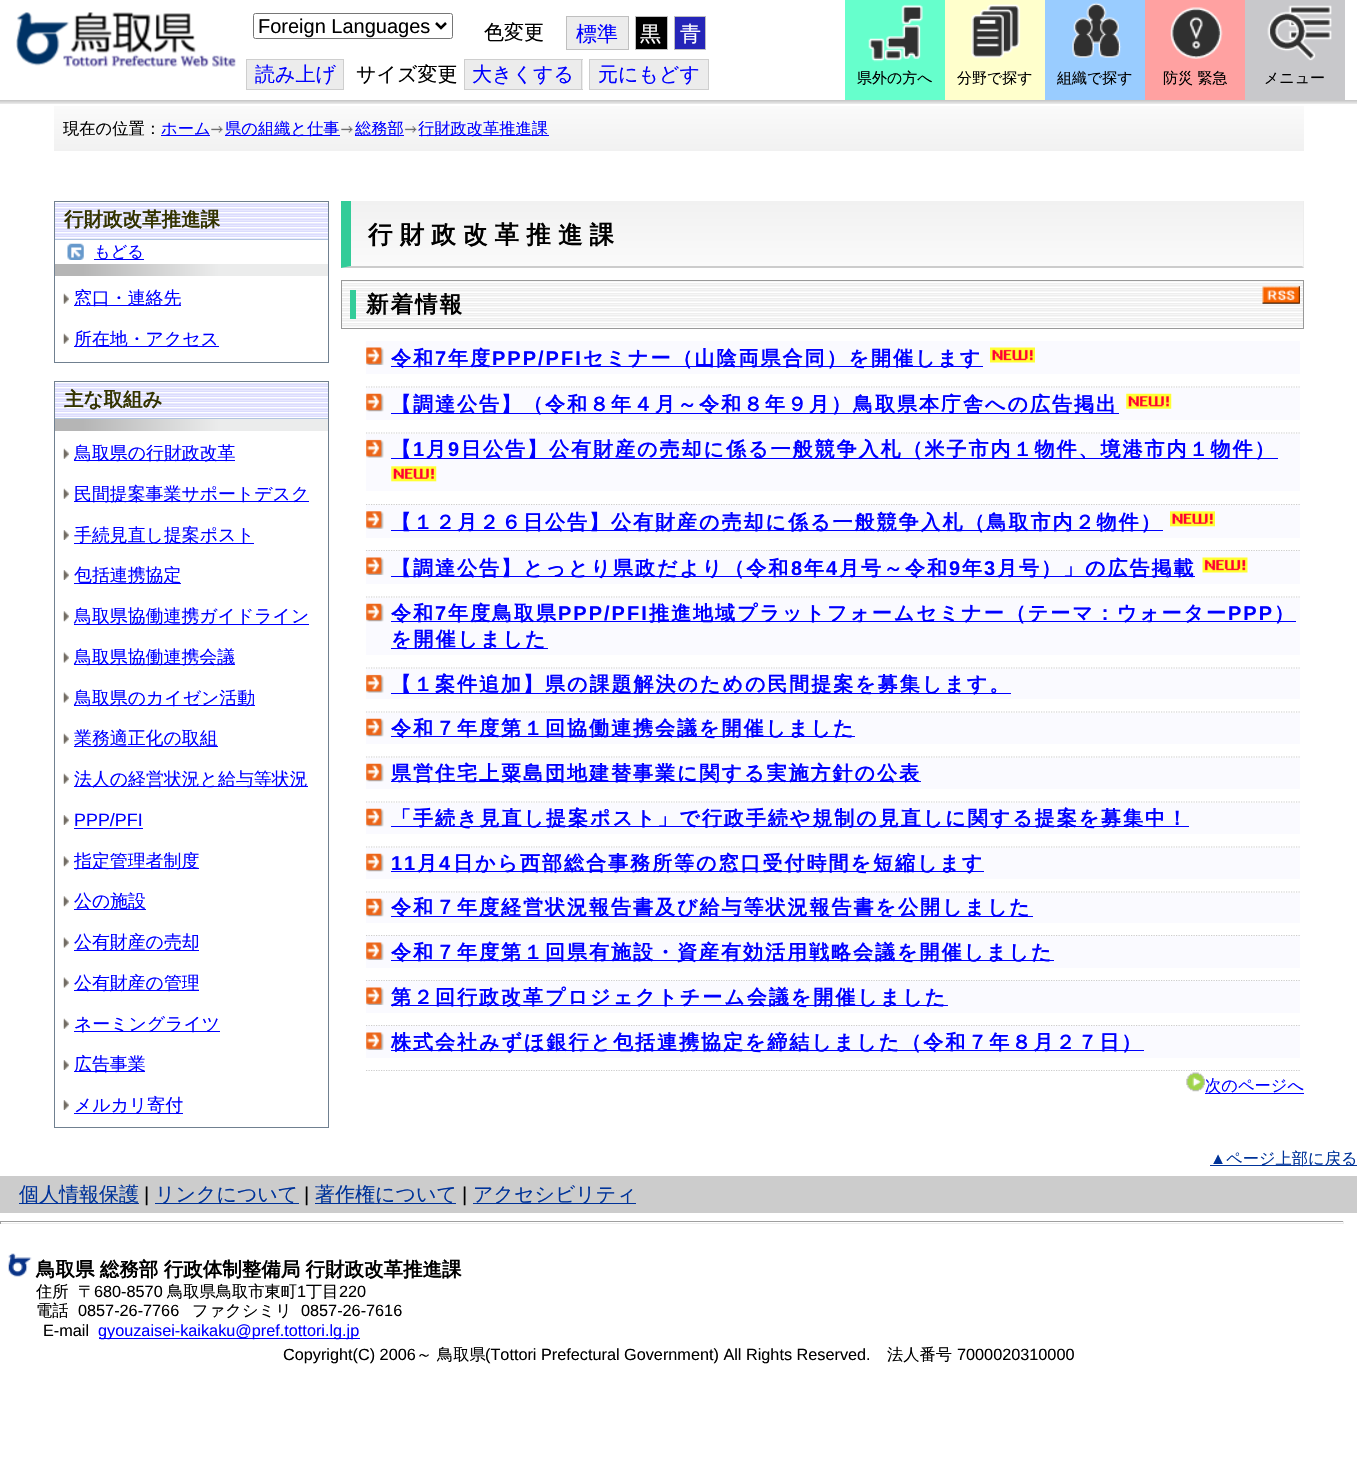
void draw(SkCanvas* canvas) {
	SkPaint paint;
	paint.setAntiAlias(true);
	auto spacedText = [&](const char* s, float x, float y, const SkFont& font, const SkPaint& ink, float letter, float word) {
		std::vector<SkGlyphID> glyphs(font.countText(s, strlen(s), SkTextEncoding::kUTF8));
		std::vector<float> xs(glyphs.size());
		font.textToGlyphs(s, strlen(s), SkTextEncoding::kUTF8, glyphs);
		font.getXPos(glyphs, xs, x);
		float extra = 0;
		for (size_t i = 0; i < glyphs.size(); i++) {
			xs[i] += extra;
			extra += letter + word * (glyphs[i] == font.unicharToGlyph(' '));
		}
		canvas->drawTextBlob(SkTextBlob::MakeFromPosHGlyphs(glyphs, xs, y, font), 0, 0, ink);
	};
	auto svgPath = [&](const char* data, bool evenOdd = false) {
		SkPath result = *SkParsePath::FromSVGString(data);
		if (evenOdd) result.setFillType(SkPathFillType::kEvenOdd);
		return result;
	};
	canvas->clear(0xffffffff);
	{
		const SkColor colors[] = {0xfffafafa, 0xfff1f1f1};
		const float stops[] = {0, 1};
		const SkPoint ends[] = {{679, 106}, {679, 151}};
		paint.setShader(SkGradientShader::MakeLinear(ends, colors, stops, 2, SkTileMode::kClamp));
		paint.setAlpha(255);
	}
	canvas->drawRect(SkRect::MakeXYWH(54, 106, 1250, 45), paint);
	canvas->save();
	canvas->clipRect(SkRect::MakeXYWH(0, 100, 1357, 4));
	paint.setShader(nullptr);
	paint.setColor(0x1a000000);
	paint.setMaskFilter(SkMaskFilter::MakeBlur(kNormal_SkBlurStyle, 3));
	canvas->drawRect(SkRect::MakeXYWH(-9, 1, 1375, 100), paint);
	paint.setMaskFilter(nullptr);
	paint.setMaskFilter(SkMaskFilter::MakeBlur(kNormal_SkBlurStyle, 3));
	canvas->drawRect(SkRect::MakeXYWH(-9, 1, 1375, 100), paint);
	paint.setMaskFilter(nullptr);
	paint.setMaskFilter(SkMaskFilter::MakeBlur(kNormal_SkBlurStyle, 3));
	canvas->drawRect(SkRect::MakeXYWH(-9, 1, 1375, 100), paint);
	paint.setMaskFilter(nullptr);
	paint.setMaskFilter(SkMaskFilter::MakeBlur(kNormal_SkBlurStyle, 3));
	canvas->drawRect(SkRect::MakeXYWH(-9, 1, 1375, 100), paint);
	paint.setMaskFilter(nullptr);
	canvas->restore();
	canvas->drawImageRect(SkImages::DeferredFromEncodedData(SkData::MakeFromFileName("img1.png")), SkRect::MakeXYWH(16, 12, 220, 55), SkSamplingOptions());
	paint.setStroke(true);
	paint.setStrokeWidth(1);
	paint.setColor(0xff767676);
	canvas->drawRoundRect(SkRect::MakeXYWH(253.5, 13.5, 199, 25), 2, 2, paint);
	paint.setStrokeWidth(2.5);
	paint.setColor(0xff000000);
	canvas->drawPath(svgPath("M436 23L441 28L446 23"), paint);
	SkFont f1(fontMgr->matchFamilyStyle("Liberation Sans", SkFontStyle::Normal()), 20);
	f1.setSubpixel(true);
	paint.setStroke(false);
	canvas->drawString("Foreign Languages", 258, 33, f1, paint);
	SkFont f2(fontMgr->matchFamilyStyle("WenQuanYi Zen Hei", SkFontStyle(500, SkFontStyle::kNormal_Width, SkFontStyle::kUpright_Slant)), 20);
	f2.setSubpixel(true);
	canvas->drawString("色変更", 484, 39, f2, paint);
	paint.setColor(0xffececec);
	canvas->drawRect(SkRect::MakeXYWH(566.5, 16.5, 62, 33), paint);
	paint.setStroke(true);
	paint.setStrokeWidth(1);
	paint.setColor(0xffbfbfbf);
	canvas->drawRect(SkRect::MakeXYWH(566.5, 16.5, 62, 33), paint);
	SkFont f3(fontMgr->matchFamilyStyle("WenQuanYi Zen Hei", SkFontStyle(500, SkFontStyle::kNormal_Width, SkFontStyle::kUpright_Slant)), 21);
	f3.setSubpixel(true);
	paint.setStroke(false);
	paint.setColor(0xff0000ff);
	canvas->drawString("標準", 576, 41, f3, paint);
	paint.setColor(0xff000000);
	canvas->drawRect(SkRect::MakeXYWH(635.5, 16.5, 32, 33), paint);
	paint.setStroke(true);
	paint.setColor(0xffbfbfbf);
	canvas->drawRect(SkRect::MakeXYWH(635.5, 16.5, 32, 33), paint);
	paint.setStroke(false);
	paint.setColor(0xffffffff);
	canvas->drawString("黒", 640, 41, f3, paint);
	paint.setColor(0xff2525b8);
	canvas->drawRect(SkRect::MakeXYWH(674.5, 16.5, 31, 33), paint);
	paint.setStroke(true);
	paint.setColor(0xffbfbfbf);
	canvas->drawRect(SkRect::MakeXYWH(674.5, 16.5, 31, 33), paint);
	paint.setStroke(false);
	paint.setColor(0xffffffff);
	canvas->drawString("青", 680, 41, f3, paint);
	paint.setColor(0xffececec);
	canvas->drawRect(SkRect::MakeXYWH(246.5, 59.5, 97, 30), paint);
	paint.setStroke(true);
	paint.setColor(0xffcecece);
	canvas->drawRect(SkRect::MakeXYWH(246.5, 59.5, 97, 30), paint);
	paint.setStroke(false);
	paint.setColor(0xff0000ff);
	canvas->drawString("読み上げ", 255, 81, f2, paint);
	paint.setColor(0xff000000);
	canvas->drawString("サイズ変更", 356, 81, f2, paint);
	paint.setColor(0xffececec);
	canvas->drawRect(SkRect::MakeXYWH(465, 60, 118, 29), paint);
	paint.setColor(0xff0000ff);
	canvas->drawString("大きくする", 472, 81, f2, paint);
	paint.setColor(0xffcecece);
	canvas->drawRect(SkRect::MakeXYWH(464, 59, 119, 1), paint);
	canvas->drawRect(SkRect::MakeXYWH(464, 89, 29, 1), paint);
	canvas->drawRect(SkRect::MakeXYWH(464, 59, 1, 31), paint);
	canvas->drawRect(SkRect::MakeXYWH(581, 59, 1, 31), paint);
	canvas->drawRect(SkRect::MakeXYWH(493, 89, 90, 1), paint);
	paint.setColor(0xffececec);
	canvas->drawRect(SkRect::MakeXYWH(590, 60, 118, 29), paint);
	paint.setColor(0xff0000ff);
	canvas->drawString("元にもどす", 598, 81, f2, paint);
	paint.setColor(0xffcecece);
	canvas->drawRect(SkRect::MakeXYWH(589, 59, 120, 1), paint);
	canvas->drawRect(SkRect::MakeXYWH(589, 89, 29, 1), paint);
	canvas->drawRect(SkRect::MakeXYWH(589, 59, 1, 31), paint);
	canvas->drawRect(SkRect::MakeXYWH(708, 59, 1, 31), paint);
	canvas->drawRect(SkRect::MakeXYWH(618, 89, 91, 1), paint);
	paint.setColor(0xff66ffcc);
	canvas->drawRect(SkRect::MakeXYWH(845, 0, 100, 100), paint);
	canvas->drawImageRect(SkImages::DeferredFromEncodedData(SkData::MakeFromFileName("img2.png")), SkRect::MakeXYWH(868, 4, 55, 58), SkSamplingOptions());
	SkFont f4(fontMgr->matchFamilyStyle("WenQuanYi Zen Hei", SkFontStyle(500, SkFontStyle::kNormal_Width, SkFontStyle::kUpright_Slant)), 15);
	f4.setSubpixel(true);
	paint.setColor(0xff000000);
	canvas->drawString("県外の方へ", 857, 83, f4, paint);
	paint.setColor(0xffffffcc);
	canvas->drawRect(SkRect::MakeXYWH(945, 0, 100, 100), paint);
	canvas->drawImageRect(SkImages::DeferredFromEncodedData(SkData::MakeFromFileName("img3.png")), SkRect::MakeXYWH(971, 4, 50, 55), SkSamplingOptions());
	paint.setColor(0xff000000);
	canvas->drawString("分野で探す", 957, 83, f4, paint);
	paint.setColor(0xff99ccff);
	canvas->drawRect(SkRect::MakeXYWH(1045, 0, 100, 100), paint);
	canvas->drawImageRect(SkImages::DeferredFromEncodedData(SkData::MakeFromFileName("img4.png")), SkRect::MakeXYWH(1072, 2, 50, 56), SkSamplingOptions());
	paint.setColor(0xff000000);
	canvas->drawString("組織で探す", 1057, 83, f4, paint);
	paint.setColor(0xffffa1a1);
	canvas->drawRect(SkRect::MakeXYWH(1145, 0, 100, 100), paint);
	canvas->drawImageRect(SkImages::DeferredFromEncodedData(SkData::MakeFromFileName("img5.png")), SkRect::MakeXYWH(1170, 7, 53, 52), SkSamplingOptions());
	paint.setColor(0xff000000);
	canvas->drawString("防災 緊急", 1163, 83, f4, paint);
	paint.setColor(0xffc8c8cb);
	canvas->drawRect(SkRect::MakeXYWH(1245, 0, 100, 100), paint);
	canvas->drawImageRect(SkImages::DeferredFromEncodedData(SkData::MakeFromFileName("img6.png")), SkRect::MakeXYWH(1267, 5, 65, 56), SkSamplingOptions());
	paint.setColor(0xff000000);
	canvas->drawString("メニュー", 1264, 83, f4, paint);
	SkFont f5(fontMgr->matchFamilyStyle("WenQuanYi Zen Hei", SkFontStyle(500, SkFontStyle::kNormal_Width, SkFontStyle::kUpright_Slant)), 16.25);
	f5.setSubpixel(true);
	canvas->drawString("現在の位置：", 63, 134, f5, paint);
	paint.setColor(0xff0000ff);
	canvas->drawRect(SkRect::MakeXYWH(161, 135, 49, 1), paint);
	canvas->drawString("ホーム", 161, 134, f5, paint);
	canvas->drawImageRect(SkImages::DeferredFromEncodedData(SkData::MakeFromFileName("img7.png")), SkRect::MakeXYWH(211, 126, 12, 7), SkSamplingOptions());
	canvas->drawRect(SkRect::MakeXYWH(225, 135, 115, 1), paint);
	canvas->drawString("県の組織と仕事", 225, 134, f5, paint);
	canvas->drawImageRect(SkImages::DeferredFromEncodedData(SkData::MakeFromFileName("img7.png")), SkRect::MakeXYWH(341, 126, 12, 7), SkSamplingOptions());
	canvas->drawRect(SkRect::MakeXYWH(355, 135, 49, 1), paint);
	canvas->drawString("総務部", 355, 134, f5, paint);
	canvas->drawImageRect(SkImages::DeferredFromEncodedData(SkData::MakeFromFileName("img8.png")), SkRect::MakeXYWH(404, 126, 13, 7), SkSamplingOptions());
	canvas->drawRect(SkRect::MakeXYWH(419, 135, 130, 1), paint);
	canvas->drawString("行財政改革推進課", 418, 134, f5, paint);
	paint.setStroke(true);
	paint.setColor(0xff708090);
	canvas->drawRect(SkRect::MakeXYWH(54.5, 201.5, 274, 161), paint);
	canvas->drawImageRect(SkImages::DeferredFromEncodedData(SkData::MakeFromFileName("img9.png")), SkRect::MakeXYWH(55, 203, 273, 36), SkSamplingOptions());
	paint.setStroke(false);
	paint.setColor(0xffb0c4de);
	canvas->drawRect(SkRect::MakeXYWH(55, 239, 273, 1), paint);
	SkFont f6(fontMgr->matchFamilyStyle("WenQuanYi Zen Hei", SkFontStyle::Bold()), 19.5);
	f6.setSubpixel(true);
	paint.setColor(0xff333300);
	canvas->drawString("行財政改革推進課", 64, 226, f6, paint);
	canvas->drawImageRect(SkImages::DeferredFromEncodedData(SkData::MakeFromFileName("img10.png")), SkRect::MakeXYWH(67, 243, 17, 17), SkSamplingOptions());
	paint.setColor(0xff0000ff);
	canvas->drawRect(SkRect::MakeXYWH(94, 259, 50, 1), paint);
	canvas->drawString("もどる", 94, 257, f5, paint);
	{
		const SkColor colors[] = {0xffb5b5b5, 0xffb5b5b5, 0xffebecec, 0xffebecec};
		const float stops[] = {0, 0.1, 0.6, 1};
		const SkPoint ends[] = {{55, 270}, {328, 270}};
		paint.setShader(SkGradientShader::MakeLinear(ends, colors, stops, 4, SkTileMode::kClamp));
		paint.setAlpha(255);
	}
	canvas->drawRect(SkRect::MakeXYWH(55, 264, 273, 12), paint);
	canvas->drawImageRect(SkImages::DeferredFromEncodedData(SkData::MakeFromFileName("img11.png")), SkRect::MakeXYWH(63, 293, 6, 11), SkSamplingOptions());
	paint.setShader(nullptr);
	paint.setColor(0xff0000ff);
	canvas->drawRect(SkRect::MakeXYWH(74, 305, 107, 1), paint);
	SkFont f7(fontMgr->matchFamilyStyle("WenQuanYi Zen Hei", SkFontStyle(500, SkFontStyle::kNormal_Width, SkFontStyle::kUpright_Slant)), 17.9);
	f7.setSubpixel(true);
	canvas->drawString("窓口・連絡先", 74, 304, f7, paint);
	canvas->drawImageRect(SkImages::DeferredFromEncodedData(SkData::MakeFromFileName("img12.png")), SkRect::MakeXYWH(63, 333, 6, 11), SkSamplingOptions());
	canvas->drawRect(SkRect::MakeXYWH(74, 346, 145, 1), paint);
	canvas->drawString("所在地・アクセス", 74, 345, f7, paint);
	paint.setStroke(true);
	paint.setColor(0xff708090);
	canvas->drawRect(SkRect::MakeXYWH(54.5, 381.5, 274, 746), paint);
	canvas->drawImageRect(SkImages::DeferredFromEncodedData(SkData::MakeFromFileName("img13.png")), SkRect::MakeXYWH(55, 383, 273, 34), SkSamplingOptions());
	paint.setStroke(false);
	paint.setColor(0xffb0c4de);
	canvas->drawRect(SkRect::MakeXYWH(55, 418, 273, 1), paint);
	paint.setColor(0xff333300);
	canvas->drawString("主な取組み", 64, 406, f6, paint);
	{
		const SkColor colors[] = {0xffb5b5b5, 0xffb5b5b5, 0xffebecec, 0xffebecec};
		const float stops[] = {0, 0.1, 0.6, 1};
		const SkPoint ends[] = {{55, 425}, {328, 425}};
		paint.setShader(SkGradientShader::MakeLinear(ends, colors, stops, 4, SkTileMode::kClamp));
		paint.setAlpha(255);
	}
	canvas->drawRect(SkRect::MakeXYWH(55, 419, 273, 12), paint);
	canvas->drawImageRect(SkImages::DeferredFromEncodedData(SkData::MakeFromFileName("img12.png")), SkRect::MakeXYWH(63, 448, 6, 11), SkSamplingOptions());
	paint.setShader(nullptr);
	paint.setColor(0xff0000ff);
	canvas->drawRect(SkRect::MakeXYWH(74, 460, 161, 1), paint);
	canvas->drawString("鳥取県の行財政改革", 74, 459, f7, paint);
	canvas->drawImageRect(SkImages::DeferredFromEncodedData(SkData::MakeFromFileName("img12.png")), SkRect::MakeXYWH(63, 488, 6, 11), SkSamplingOptions());
	canvas->drawRect(SkRect::MakeXYWH(74, 501, 235, 1), paint);
	canvas->drawString("民間提案事業サポートデスク", 74, 500, f7, paint);
	canvas->drawImageRect(SkImages::DeferredFromEncodedData(SkData::MakeFromFileName("img14.png")), SkRect::MakeXYWH(63, 530, 6, 10), SkSamplingOptions());
	canvas->drawRect(SkRect::MakeXYWH(74, 543, 180, 1), paint);
	canvas->drawString("手続見直し提案ポスト", 74, 541, f7, paint);
	canvas->drawImageRect(SkImages::DeferredFromEncodedData(SkData::MakeFromFileName("img14.png")), SkRect::MakeXYWH(63, 570, 6, 10), SkSamplingOptions());
	canvas->drawRect(SkRect::MakeXYWH(74, 583, 107, 1), paint);
	canvas->drawString("包括連携協定", 74, 581, f7, paint);
	canvas->drawImageRect(SkImages::DeferredFromEncodedData(SkData::MakeFromFileName("img15.png")), SkRect::MakeXYWH(63, 611, 6, 11), SkSamplingOptions());
	canvas->drawRect(SkRect::MakeXYWH(74, 624, 235, 1), paint);
	canvas->drawString("鳥取県協働連携ガイドライン", 74, 622, f7, paint);
	canvas->drawImageRect(SkImages::DeferredFromEncodedData(SkData::MakeFromFileName("img16.png")), SkRect::MakeXYWH(63, 652, 6, 11), SkSamplingOptions());
	canvas->drawRect(SkRect::MakeXYWH(74, 664, 161, 1), paint);
	canvas->drawString("鳥取県協働連携会議", 74, 663, f7, paint);
	canvas->drawImageRect(SkImages::DeferredFromEncodedData(SkData::MakeFromFileName("img16.png")), SkRect::MakeXYWH(63, 692, 6, 11), SkSamplingOptions());
	canvas->drawRect(SkRect::MakeXYWH(74, 705, 181, 1), paint);
	canvas->drawString("鳥取県のカイゼン活動", 74, 704, f7, paint);
	canvas->drawImageRect(SkImages::DeferredFromEncodedData(SkData::MakeFromFileName("img12.png")), SkRect::MakeXYWH(63, 733, 6, 11), SkSamplingOptions());
	canvas->drawRect(SkRect::MakeXYWH(74, 746, 144, 1), paint);
	canvas->drawString("業務適正化の取組", 74, 744, f7, paint);
	canvas->drawImageRect(SkImages::DeferredFromEncodedData(SkData::MakeFromFileName("img17.png")), SkRect::MakeXYWH(63, 773, 6, 11), SkSamplingOptions());
	canvas->drawRect(SkRect::MakeXYWH(74, 786, 234, 1), paint);
	canvas->drawString("法人の経営状況と給与等状況", 74, 785, f7, paint);
	canvas->drawImageRect(SkImages::DeferredFromEncodedData(SkData::MakeFromFileName("img14.png")), SkRect::MakeXYWH(63, 815, 6, 10), SkSamplingOptions());
	SkFont f8(fontMgr->matchFamilyStyle("Liberation Sans", SkFontStyle::Normal()), 17.9);
	f8.setSubpixel(true);
	canvas->drawString("PPP/PFI", 74, 826, f8, paint);
	canvas->drawRect(SkRect::MakeXYWH(74, 828, 69, 1), paint);
	canvas->drawImageRect(SkImages::DeferredFromEncodedData(SkData::MakeFromFileName("img15.png")), SkRect::MakeXYWH(63, 856, 6, 11), SkSamplingOptions());
	canvas->drawRect(SkRect::MakeXYWH(74, 868, 125, 1), paint);
	canvas->drawString("指定管理者制度", 74, 867, f7, paint);
	canvas->drawImageRect(SkImages::DeferredFromEncodedData(SkData::MakeFromFileName("img15.png")), SkRect::MakeXYWH(63, 896, 6, 11), SkSamplingOptions());
	canvas->drawRect(SkRect::MakeXYWH(74, 909, 72, 1), paint);
	canvas->drawString("公の施設", 74, 907, f7, paint);
	canvas->drawImageRect(SkImages::DeferredFromEncodedData(SkData::MakeFromFileName("img16.png")), SkRect::MakeXYWH(63, 937, 6, 11), SkSamplingOptions());
	canvas->drawRect(SkRect::MakeXYWH(74, 950, 125, 1), paint);
	canvas->drawString("公有財産の売却", 74, 948, f7, paint);
	canvas->drawImageRect(SkImages::DeferredFromEncodedData(SkData::MakeFromFileName("img16.png")), SkRect::MakeXYWH(63, 977, 6, 11), SkSamplingOptions());
	canvas->drawRect(SkRect::MakeXYWH(74, 990, 125, 1), paint);
	canvas->drawString("公有財産の管理", 74, 989, f7, paint);
	canvas->drawImageRect(SkImages::DeferredFromEncodedData(SkData::MakeFromFileName("img12.png")), SkRect::MakeXYWH(63, 1018, 6, 11), SkSamplingOptions());
	canvas->drawRect(SkRect::MakeXYWH(74, 1031, 146, 1), paint);
	canvas->drawString("ネーミングライツ", 74, 1030, f7, paint);
	canvas->drawImageRect(SkImages::DeferredFromEncodedData(SkData::MakeFromFileName("img14.png")), SkRect::MakeXYWH(63, 1060, 6, 10), SkSamplingOptions());
	canvas->drawRect(SkRect::MakeXYWH(74, 1071, 71, 1), paint);
	canvas->drawString("広告事業", 74, 1070, f7, paint);
	canvas->drawImageRect(SkImages::DeferredFromEncodedData(SkData::MakeFromFileName("img14.png")), SkRect::MakeXYWH(63, 1100, 6, 10), SkSamplingOptions());
	canvas->drawRect(SkRect::MakeXYWH(74, 1113, 109, 1), paint);
	canvas->drawString("メルカリ寄付", 74, 1111, f7, paint);
	{
		const SkColor colors[] = {0xfff1f1f1, 0xfffafafa};
		const float stops[] = {0, 1};
		const SkPoint ends[] = {{827, 201}, {827, 266}};
		paint.setShader(SkGradientShader::MakeLinear(ends, colors, stops, 2, SkTileMode::kClamp));
		paint.setAlpha(255);
	}
	canvas->drawRect(SkRect::MakeXYWH(351, 201, 952, 65), paint);
	{
		const SkColor colors[] = {0xfff1f1f1, 0xfffafafa};
		const float stops[] = {0, 1};
		const SkPoint ends[] = {{827, 266}, {827, 331}};
		paint.setShader(SkGradientShader::MakeLinear(ends, colors, stops, 2, SkTileMode::kClamp));
		paint.setAlpha(255);
	}
	canvas->drawRect(SkRect::MakeXYWH(341, 266, 963, 2), paint);
	paint.setShader(nullptr);
	paint.setColor(0xffeeeeee);
	canvas->drawRect(SkRect::MakeXYWH(1303, 201, 1, 67), paint);
	paint.setColor(0xffcccccc);
	canvas->drawPath(svgPath("M1304 268H341L351 266H1302Z"), paint);
	paint.setColor(0xff33cc99);
	canvas->drawPath(svgPath("M341 268V201H351V266Z"), paint);
	SkFont f9(fontMgr->matchFamilyStyle("WenQuanYi Zen Hei", SkFontStyle::Bold()), 24.4);
	f9.setSubpixel(true);
	paint.setColor(0xff000000);
	spacedText("行財政改革推進課", 368, 243, f9, paint, 7.25, 0);
	canvas->drawImageRect(SkImages::DeferredFromEncodedData(SkData::MakeFromFileName("img18.png")), SkRect::MakeXYWH(342, 281, 961, 46), SkSamplingOptions());
	paint.setStroke(true);
	paint.setColor(0xff999999);
	canvas->drawRect(SkRect::MakeXYWH(341.5, 280.5, 962, 48), paint);
	paint.setStroke(false);
	paint.setColor(0xff33cc99);
	canvas->drawRect(SkRect::MakeXYWH(350, 290, 6, 29), paint);
	SkFont f10(fontMgr->matchFamilyStyle("WenQuanYi Zen Hei", SkFontStyle::Bold()), 22.5);
	f10.setSubpixel(true);
	paint.setColor(0xff000000);
	spacedText("新着情報", 366, 312, f10, paint, 2, 0);
	canvas->drawImageRect(SkImages::DeferredFromEncodedData(SkData::MakeFromFileName("img19.png")), SkRect::MakeXYWH(1262, 286, 38, 18), SkSamplingOptions());
	paint.setColor(0xfffafaff);
	canvas->drawRect(SkRect::MakeXYWH(366, 341, 934, 33), paint);
	canvas->drawImageRect(SkImages::DeferredFromEncodedData(SkData::MakeFromFileName("img20.png")), SkRect::MakeXYWH(366, 347, 18, 18), SkSamplingOptions());
	paint.setColor(0xff0000ff);
	canvas->drawRect(SkRect::MakeXYWH(391, 366, 592, 1), paint);
	SkFont f11(fontMgr->matchFamilyStyle("WenQuanYi Zen Hei", SkFontStyle::Bold()), 20);
	f11.setSubpixel(true);
	spacedText("令和", 391, 365, f11, paint, 2, 0);
	SkFont f12(fontMgr->matchFamilyStyle("Liberation Sans", SkFontStyle::Bold()), 20);
	f12.setSubpixel(true);
	spacedText("7", 435, 365, f12, paint, 2, 0);
	spacedText("年度", 448, 365, f11, paint, 2, 0);
	spacedText("PPP/PFI", 492, 365, f12, paint, 2, 0);
	spacedText("セミナー（山陰両県合同）を開催します", 583, 365, f11, paint, 2, 0);
	canvas->drawImageRect(SkImages::DeferredFromEncodedData(SkData::MakeFromFileName("img21.png")), SkRect::MakeXYWH(990, 347, 45, 16), SkSamplingOptions());
	paint.setStroke(true);
	paint.setStrokeWidth(1.2);
	paint.setColor(0xffcccccc);
	paint.setPathEffect(SkDashPathEffect::Make({{1.25f, 1.25f}}, 0));
	canvas->drawPath(svgPath("M366 387H1300"), paint);
	paint.setPathEffect(nullptr);
	paint.setStroke(false);
	paint.setColor(0xfffafaff);
	canvas->drawRect(SkRect::MakeXYWH(366, 388, 934, 32), paint);
	canvas->drawImageRect(SkImages::DeferredFromEncodedData(SkData::MakeFromFileName("img22.png")), SkRect::MakeXYWH(366, 393, 18, 19), SkSamplingOptions());
	paint.setColor(0xff0000ff);
	canvas->drawRect(SkRect::MakeXYWH(391, 413, 728, 1), paint);
	spacedText("【調達公告】（令和８年４月～令和８年９月）鳥取県本庁舎への広告掲出", 391, 411, f11, paint, 2, 0);
	canvas->drawImageRect(SkImages::DeferredFromEncodedData(SkData::MakeFromFileName("img23.png")), SkRect::MakeXYWH(1126, 393, 46, 16), SkSamplingOptions());
	paint.setStroke(true);
	paint.setColor(0xffcccccc);
	paint.setPathEffect(SkDashPathEffect::Make({{1.25f, 1.25f}}, 0));
	canvas->drawPath(svgPath("M366 433H1300"), paint);
	paint.setPathEffect(nullptr);
	paint.setStroke(false);
	paint.setColor(0xfffafaff);
	canvas->drawRect(SkRect::MakeXYWH(366, 434, 934, 57), paint);
	canvas->drawImageRect(SkImages::DeferredFromEncodedData(SkData::MakeFromFileName("img24.png")), SkRect::MakeXYWH(366, 439, 18, 19), SkSamplingOptions());
	paint.setColor(0xff0000ff);
	canvas->drawRect(SkRect::MakeXYWH(391, 458, 887, 1), paint);
	spacedText("【", 391, 456, f11, paint, 2, 0);
	spacedText("1", 413, 456, f12, paint, 2, 0);
	spacedText("月", 426, 456, f11, paint, 2, 0);
	spacedText("9", 448, 456, f12, paint, 2, 0);
	spacedText("日公告】公有財産の売却に係る一般競争入札（米子市内１物件、境港市内１物件）", 461, 456, f11, paint, 2, 0);
	canvas->drawImageRect(SkImages::DeferredFromEncodedData(SkData::MakeFromFileName("img25.png")), SkRect::MakeXYWH(391, 466, 46, 16), SkSamplingOptions());
	paint.setStroke(true);
	paint.setColor(0xffcccccc);
	paint.setPathEffect(SkDashPathEffect::Make({{1.25f, 1.25f}}, 0));
	canvas->drawPath(svgPath("M366 504.5H1300"), paint);
	paint.setPathEffect(nullptr);
	paint.setStroke(false);
	paint.setColor(0xfffafaff);
	canvas->drawRect(SkRect::MakeXYWH(366, 505, 934, 33), paint);
	canvas->drawImageRect(SkImages::DeferredFromEncodedData(SkData::MakeFromFileName("img26.png")), SkRect::MakeXYWH(366, 511, 18, 18), SkSamplingOptions());
	paint.setColor(0xff0000ff);
	canvas->drawRect(SkRect::MakeXYWH(391, 530, 772, 1), paint);
	spacedText("【１２月２６日公告】公有財産の売却に係る一般競争入札（鳥取市内２物件）", 391, 529, f11, paint, 2, 0);
	canvas->drawImageRect(SkImages::DeferredFromEncodedData(SkData::MakeFromFileName("img27.png")), SkRect::MakeXYWH(1170, 511, 45, 16), SkSamplingOptions());
	paint.setStroke(true);
	paint.setColor(0xffcccccc);
	paint.setPathEffect(SkDashPathEffect::Make({{1.25f, 1.25f}}, 0));
	canvas->drawPath(svgPath("M366 550.5H1300"), paint);
	paint.setPathEffect(nullptr);
	paint.setStroke(false);
	paint.setColor(0xfffafaff);
	canvas->drawRect(SkRect::MakeXYWH(366, 551, 934, 33), paint);
	canvas->drawImageRect(SkImages::DeferredFromEncodedData(SkData::MakeFromFileName("img20.png")), SkRect::MakeXYWH(366, 557, 18, 18), SkSamplingOptions());
	paint.setColor(0xff0000ff);
	canvas->drawRect(SkRect::MakeXYWH(391, 576, 804, 1), paint);
	spacedText("【調達公告】とっとり県政だより（令和", 391, 575, f11, paint, 2, 0);
	spacedText("8", 791, 575, f12, paint, 2, 0);
	spacedText("年", 804, 575, f11, paint, 2, 0);
	spacedText("4", 826, 575, f12, paint, 2, 0);
	spacedText("月号～令和", 839, 575, f11, paint, 2, 0);
	spacedText("9", 949, 575, f12, paint, 2, 0);
	spacedText("年", 962, 575, f11, paint, 2, 0);
	spacedText("3", 984, 575, f12, paint, 2, 0);
	spacedText("月号）」の広告掲載", 997, 575, f11, paint, 2, 0);
	canvas->drawImageRect(SkImages::DeferredFromEncodedData(SkData::MakeFromFileName("img28.png")), SkRect::MakeXYWH(1202, 557, 46, 16), SkSamplingOptions());
	paint.setStroke(true);
	paint.setColor(0xffcccccc);
	paint.setPathEffect(SkDashPathEffect::Make({{1.25f, 1.25f}}, 0));
	canvas->drawPath(svgPath("M366 597H1300"), paint);
	paint.setPathEffect(nullptr);
	paint.setStroke(false);
	paint.setColor(0xfffafaff);
	canvas->drawRect(SkRect::MakeXYWH(366, 598, 934, 57), paint);
	canvas->drawImageRect(SkImages::DeferredFromEncodedData(SkData::MakeFromFileName("img22.png")), SkRect::MakeXYWH(366, 603, 18, 19), SkSamplingOptions());
	paint.setColor(0xff0000ff);
	canvas->drawRect(SkRect::MakeXYWH(391, 621, 905, 1), paint);
	spacedText("令和", 391, 620, f11, paint, 2, 0);
	spacedText("7", 435, 620, f12, paint, 2, 0);
	spacedText("年度鳥取県", 448, 620, f11, paint, 2, 0);
	spacedText("PPP/PFI", 558, 620, f12, paint, 2, 0);
	spacedText("推進地域プラットフォームセミナー（テーマ：ウォーター", 649, 620, f11, paint, 2, 0);
	spacedText("PPP", 1228, 620, f12, paint, 2, 0);
	spacedText("）", 1274, 620, f11, paint, 2, 0);
	canvas->drawRect(SkRect::MakeXYWH(391, 648, 157, 1), paint);
	spacedText("を開催しました", 391, 646, f11, paint, 2, 0);
	paint.setStroke(true);
	paint.setColor(0xffcccccc);
	paint.setPathEffect(SkDashPathEffect::Make({{1.25f, 1.25f}}, 0));
	canvas->drawPath(svgPath("M366 668H1300"), paint);
	paint.setPathEffect(nullptr);
	paint.setStroke(false);
	paint.setColor(0xfffafaff);
	canvas->drawRect(SkRect::MakeXYWH(366, 669, 934, 30), paint);
	canvas->drawImageRect(SkImages::DeferredFromEncodedData(SkData::MakeFromFileName("img24.png")), SkRect::MakeXYWH(366, 674, 18, 19), SkSamplingOptions());
	paint.setColor(0xff0000ff);
	canvas->drawRect(SkRect::MakeXYWH(391, 693, 620, 1), paint);
	spacedText("【１案件追加】県の課題解決のための民間提案を募集します。", 391, 691, f11, paint, 2, 0);
	paint.setStroke(true);
	paint.setColor(0xffcccccc);
	paint.setPathEffect(SkDashPathEffect::Make({{1.25f, 1.25f}}, 0));
	canvas->drawPath(svgPath("M366 712H1300"), paint);
	paint.setPathEffect(nullptr);
	paint.setStroke(false);
	paint.setColor(0xfffafaff);
	canvas->drawRect(SkRect::MakeXYWH(366, 713, 934, 31), paint);
	canvas->drawImageRect(SkImages::DeferredFromEncodedData(SkData::MakeFromFileName("img22.png")), SkRect::MakeXYWH(366, 718, 18, 19), SkSamplingOptions());
	paint.setColor(0xff0000ff);
	canvas->drawRect(SkRect::MakeXYWH(391, 736, 464, 1), paint);
	spacedText("令和７年度第１回協働連携会議を開催しました", 391, 735, f11, paint, 2, 0);
	paint.setStroke(true);
	paint.setColor(0xffcccccc);
	paint.setPathEffect(SkDashPathEffect::Make({{1.25f, 1.25f}}, 0));
	canvas->drawPath(svgPath("M366 757H1300"), paint);
	paint.setPathEffect(nullptr);
	paint.setStroke(false);
	paint.setColor(0xfffafaff);
	canvas->drawRect(SkRect::MakeXYWH(366, 758, 934, 31), paint);
	canvas->drawImageRect(SkImages::DeferredFromEncodedData(SkData::MakeFromFileName("img22.png")), SkRect::MakeXYWH(366, 763, 18, 19), SkSamplingOptions());
	paint.setColor(0xff0000ff);
	canvas->drawRect(SkRect::MakeXYWH(391, 781, 530, 1), paint);
	spacedText("県営住宅上粟島団地建替事業に関する実施方針の公表", 391, 780, f11, paint, 2, 0);
	paint.setStroke(true);
	paint.setColor(0xffcccccc);
	paint.setPathEffect(SkDashPathEffect::Make({{1.25f, 1.25f}}, 0));
	canvas->drawPath(svgPath("M366 802H1300"), paint);
	paint.setPathEffect(nullptr);
	paint.setStroke(false);
	paint.setColor(0xfffafaff);
	canvas->drawRect(SkRect::MakeXYWH(366, 803, 934, 31), paint);
	canvas->drawImageRect(SkImages::DeferredFromEncodedData(SkData::MakeFromFileName("img22.png")), SkRect::MakeXYWH(366, 808, 18, 19), SkSamplingOptions());
	paint.setColor(0xff0000ff);
	canvas->drawRect(SkRect::MakeXYWH(391, 826, 798, 1), paint);
	spacedText("「手続き見直し提案ポスト」で行政手続や規制の見直しに関する提案を募集中！", 391, 825, f11, paint, 2, 0);
	paint.setStroke(true);
	paint.setColor(0xffcccccc);
	paint.setPathEffect(SkDashPathEffect::Make({{1.25f, 1.25f}}, 0));
	canvas->drawPath(svgPath("M366 847H1300"), paint);
	paint.setPathEffect(nullptr);
	paint.setStroke(false);
	paint.setColor(0xfffafaff);
	canvas->drawRect(SkRect::MakeXYWH(366, 848, 934, 31), paint);
	canvas->drawImageRect(SkImages::DeferredFromEncodedData(SkData::MakeFromFileName("img22.png")), SkRect::MakeXYWH(366, 853, 18, 19), SkSamplingOptions());
	paint.setColor(0xff0000ff);
	spacedText("11", 391, 870, f12, paint, 2, 0);
	canvas->drawRect(SkRect::MakeXYWH(391, 871, 593, 1), paint);
	spacedText("月", 417, 870, f11, paint, 2, 0);
	spacedText("4", 439, 870, f12, paint, 2, 0);
	spacedText("日から西部総合事務所等の窓口受付時間を短縮します", 453, 870, f11, paint, 2, 0);
	paint.setStroke(true);
	paint.setColor(0xffcccccc);
	paint.setPathEffect(SkDashPathEffect::Make({{1.25f, 1.25f}}, 0));
	canvas->drawPath(svgPath("M366 892H1300"), paint);
	paint.setPathEffect(nullptr);
	paint.setStroke(false);
	paint.setColor(0xfffafaff);
	canvas->drawRect(SkRect::MakeXYWH(366, 893, 934, 30), paint);
	canvas->drawImageRect(SkImages::DeferredFromEncodedData(SkData::MakeFromFileName("img22.png")), SkRect::MakeXYWH(366, 898, 18, 19), SkSamplingOptions());
	paint.setColor(0xff0000ff);
	canvas->drawRect(SkRect::MakeXYWH(391, 916, 642, 1), paint);
	spacedText("令和７年度経営状況報告書及び給与等状況報告書を公開しました", 391, 914, f11, paint, 2, 0);
	paint.setStroke(true);
	paint.setColor(0xffcccccc);
	paint.setPathEffect(SkDashPathEffect::Make({{1.25f, 1.25f}}, 0));
	canvas->drawPath(svgPath("M366 935.5H1300"), paint);
	paint.setPathEffect(nullptr);
	paint.setStroke(false);
	paint.setColor(0xfffafaff);
	canvas->drawRect(SkRect::MakeXYWH(366, 936, 934, 32), paint);
	canvas->drawImageRect(SkImages::DeferredFromEncodedData(SkData::MakeFromFileName("img20.png")), SkRect::MakeXYWH(366, 942, 18, 18), SkSamplingOptions());
	paint.setColor(0xff0000ff);
	canvas->drawRect(SkRect::MakeXYWH(391, 960, 663, 1), paint);
	spacedText("令和７年度第１回県有施設・資産有効活用戦略会議を開催しました", 391, 959, f11, paint, 2, 0);
	paint.setStroke(true);
	paint.setColor(0xffcccccc);
	paint.setPathEffect(SkDashPathEffect::Make({{1.25f, 1.25f}}, 0));
	canvas->drawPath(svgPath("M366 980.5H1300"), paint);
	paint.setPathEffect(nullptr);
	paint.setStroke(false);
	paint.setColor(0xfffafaff);
	canvas->drawRect(SkRect::MakeXYWH(366, 981, 934, 32), paint);
	canvas->drawImageRect(SkImages::DeferredFromEncodedData(SkData::MakeFromFileName("img20.png")), SkRect::MakeXYWH(366, 987, 18, 18), SkSamplingOptions());
	paint.setColor(0xff0000ff);
	canvas->drawRect(SkRect::MakeXYWH(391, 1005, 557, 1), paint);
	spacedText("第２回行政改革プロジェクトチーム会議を開催しました", 391, 1004, f11, paint, 2, 0);
	paint.setStroke(true);
	paint.setColor(0xffcccccc);
	paint.setPathEffect(SkDashPathEffect::Make({{1.25f, 1.25f}}, 0));
	canvas->drawPath(svgPath("M366 1025.5H1300"), paint);
	paint.setPathEffect(nullptr);
	paint.setStroke(false);
	paint.setColor(0xfffafaff);
	canvas->drawRect(SkRect::MakeXYWH(366, 1026, 934, 32), paint);
	canvas->drawImageRect(SkImages::DeferredFromEncodedData(SkData::MakeFromFileName("img20.png")), SkRect::MakeXYWH(366, 1032, 18, 18), SkSamplingOptions());
	paint.setColor(0xff0000ff);
	canvas->drawRect(SkRect::MakeXYWH(391, 1050, 753, 1), paint);
	spacedText("株式会社みずほ銀行と包括連携協定を締結しました（令和７年８月２７日）", 391, 1049, f11, paint, 2, 0);
	paint.setStroke(true);
	paint.setColor(0xffcccccc);
	paint.setPathEffect(SkDashPathEffect::Make({{1.25f, 1.25f}}, 0));
	canvas->drawPath(svgPath("M366 1070.5H1300"), paint);
	paint.setPathEffect(nullptr);
	canvas->drawImageRect(SkImages::DeferredFromEncodedData(SkData::MakeFromFileName("img29.png")), SkRect::MakeXYWH(1186, 1072, 19, 20), SkSamplingOptions());
	paint.setStroke(false);
	paint.setColor(0xff0000ff);
	canvas->drawRect(SkRect::MakeXYWH(1205, 1093, 99, 1), paint);
	canvas->drawString("次のページへ", 1205, 1091, f5, paint);
	SkFont f13(fontMgr->matchFamilyStyle("Liberation Sans", SkFontStyle::Normal()), 16.25);
	f13.setSubpixel(true);
	paint.setColor(0xff003399);
	canvas->drawString("▲", 1210, 1164, f13, paint);
	canvas->drawRect(SkRect::MakeXYWH(1210, 1165, 147, 1), paint);
	canvas->drawString("ページ上部に戻る", 1226, 1164, f5, paint);
	paint.setColor(0xffcccccc);
	canvas->drawRect(SkRect::MakeXYWH(0, 1176, 1357, 37), paint);
	paint.setColor(0xff003399);
	canvas->drawRect(SkRect::MakeXYWH(19, 1203, 120, 1), paint);
	canvas->drawString("個人情報保護", 19, 1201, f2, paint);
	paint.setColor(0xff000000);
	canvas->drawString("|", 144, 1201, f1, paint);
	paint.setColor(0xff003399);
	canvas->drawRect(SkRect::MakeXYWH(155, 1203, 144, 1), paint);
	canvas->drawString("リンクについて", 155, 1201, f2, paint);
	paint.setColor(0xff000000);
	canvas->drawString("|", 304, 1201, f1, paint);
	paint.setColor(0xff003399);
	canvas->drawRect(SkRect::MakeXYWH(315, 1203, 141, 1), paint);
	canvas->drawString("著作権について", 315, 1201, f2, paint);
	paint.setColor(0xff000000);
	canvas->drawString("|", 462, 1201, f1, paint);
	paint.setColor(0xff003399);
	canvas->drawRect(SkRect::MakeXYWH(473, 1203, 163, 1), paint);
	canvas->drawString("アクセシビリティ", 473, 1201, f2, paint);
	paint.setColor(0xff9f9f9f);
	canvas->drawRect(SkRect::MakeXYWH(0, 1221, 1344, 1), paint);
	paint.setColor(0xffeeeeee);
	canvas->drawRect(SkRect::MakeXYWH(1343, 1221, 1, 3), paint);
	canvas->drawRect(SkRect::MakeXYWH(0, 1223, 1344, 1), paint);
	paint.setColor(0xff9f9f9f);
	canvas->drawRect(SkRect::MakeXYWH(0, 1221, 1, 3), paint);
	canvas->drawImageRect(SkImages::DeferredFromEncodedData(SkData::MakeFromFileName("img30.png")), SkRect::MakeXYWH(8, 1253, 24, 24), SkSamplingOptions());
	paint.setColor(0xff000000);
	spacedText("鳥取県 総務部 行政体制整備局 行財政改革推進課", 36, 1276, f6, paint, 0, -0.5);
	canvas->drawString("住所", 36, 1297, f5, paint);
	canvas->drawString("〒", 78, 1297, f5, paint);
	canvas->drawString("680-8570", 94, 1297, f13, paint);
	canvas->drawString("鳥取県鳥取市東町", 167, 1297, f5, paint);
	canvas->drawString("1", 297, 1297, f13, paint);
	canvas->drawString("丁目", 306, 1297, f5, paint);
	canvas->drawString("220", 339, 1297, f13, paint);
	canvas->drawString("電話", 36, 1316, f5, paint);
	canvas->drawString("0857-26-7766", 78, 1316, f13, paint);
	canvas->drawString("ファクシミリ", 192, 1316, f5, paint);
	canvas->drawString("0857-26-7616", 301, 1316, f13, paint);
	canvas->drawString("E-mail", 43, 1336, f13, paint);
	paint.setColor(0xff0000ff);
	canvas->drawRect(SkRect::MakeXYWH(99, 1338, 261, 1), paint);
	canvas->drawString("gyouzaisei-kaikaku@pref.tottori.lg.jp", 98, 1336, f13, paint);
	paint.setColor(0xff000000);
	canvas->drawString("Copyright(C) 2006", 283, 1360, f13, paint);
	canvas->drawString("～", 416, 1360, f5, paint);
	canvas->drawString("鳥取県", 437, 1360, f5, paint);
	canvas->drawString("(Tottori Prefectural Government) All Rights Reserved.", 485, 1360, f13, paint);
	canvas->drawString("法人番号", 887, 1360, f5, paint);
	canvas->drawString("7000020310000", 957, 1360, f13, paint);
}
